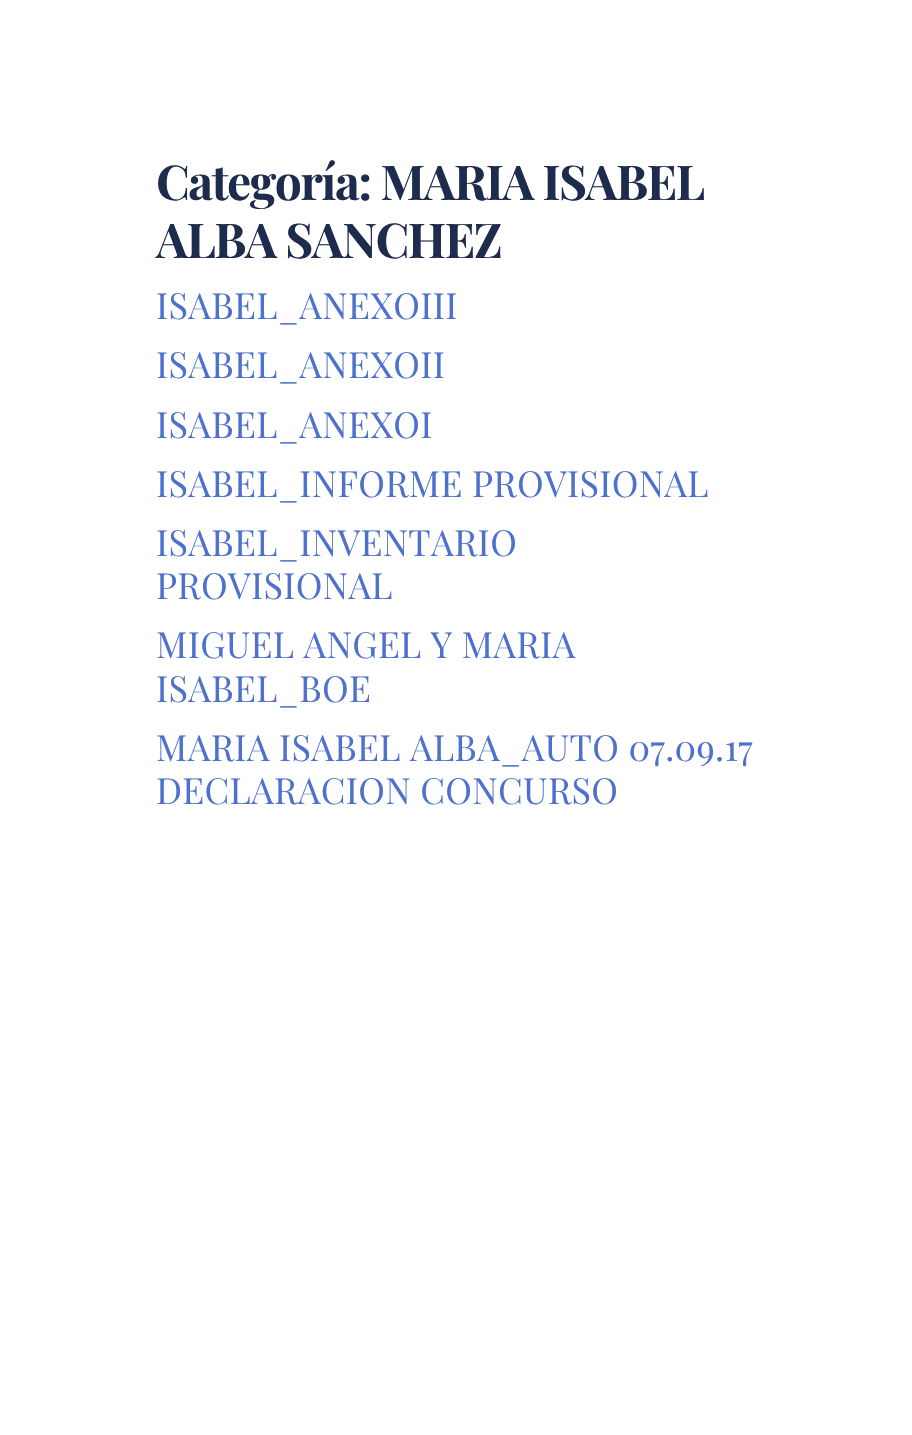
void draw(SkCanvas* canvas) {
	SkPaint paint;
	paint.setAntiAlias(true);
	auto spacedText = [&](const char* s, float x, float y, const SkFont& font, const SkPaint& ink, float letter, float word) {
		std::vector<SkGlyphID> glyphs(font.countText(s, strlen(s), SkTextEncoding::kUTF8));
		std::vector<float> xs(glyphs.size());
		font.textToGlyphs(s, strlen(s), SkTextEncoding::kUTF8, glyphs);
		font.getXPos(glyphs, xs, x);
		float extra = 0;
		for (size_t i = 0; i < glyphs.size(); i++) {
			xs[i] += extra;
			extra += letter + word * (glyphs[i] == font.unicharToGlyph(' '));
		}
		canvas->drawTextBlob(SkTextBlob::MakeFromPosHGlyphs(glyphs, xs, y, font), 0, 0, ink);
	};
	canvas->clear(0xffffffff);
	SkFont f1(fontMgr->matchFamilyStyle("Playfair Display", SkFontStyle::Bold()), 48);
	f1.setSubpixel(true);
	paint.setColor(0xff1d2b4d);
	spacedText("Categoría: MARIA ISABEL", 156, 200, f1, paint, -1.5, 0);
	spacedText("ALBA SANCHEZ", 156, 258, f1, paint, -1.5, 0);
	SkFont f2(fontMgr->matchFamilyStyle("Playfair Display", SkFontStyle::Normal()), 36);
	f2.setSubpixel(true);
	paint.setColor(0xff4d71cc);
	spacedText("ISABEL_ANEXOIII", 156, 319, f2, paint, 0.3, 0);
	spacedText("ISABEL_ANEXOII", 156, 378, f2, paint, 0.3, 0);
	spacedText("ISABEL_ANEXOI", 156, 438, f2, paint, 0.3, 0);
	spacedText("ISABEL_INFORME PROVISIONAL", 156, 497, f2, paint, 0.3, 0);
	spacedText("ISABEL_INVENTARIO", 156, 556, f2, paint, 0.3, 0);
	spacedText("PROVISIONAL", 156, 599, f2, paint, 0.3, 0);
	spacedText("MIGUEL ANGEL Y MARIA", 156, 658, f2, paint, 0.3, 0);
	spacedText("ISABEL_BOE", 156, 702, f2, paint, 0.3, 0);
	spacedText("MARIA ISABEL ALBA_AUTO 07.09.17", 156, 761, f2, paint, 0.3, 0);
	spacedText("DECLARACION CONCURSO", 156, 804, f2, paint, 0.3, 0);
}
